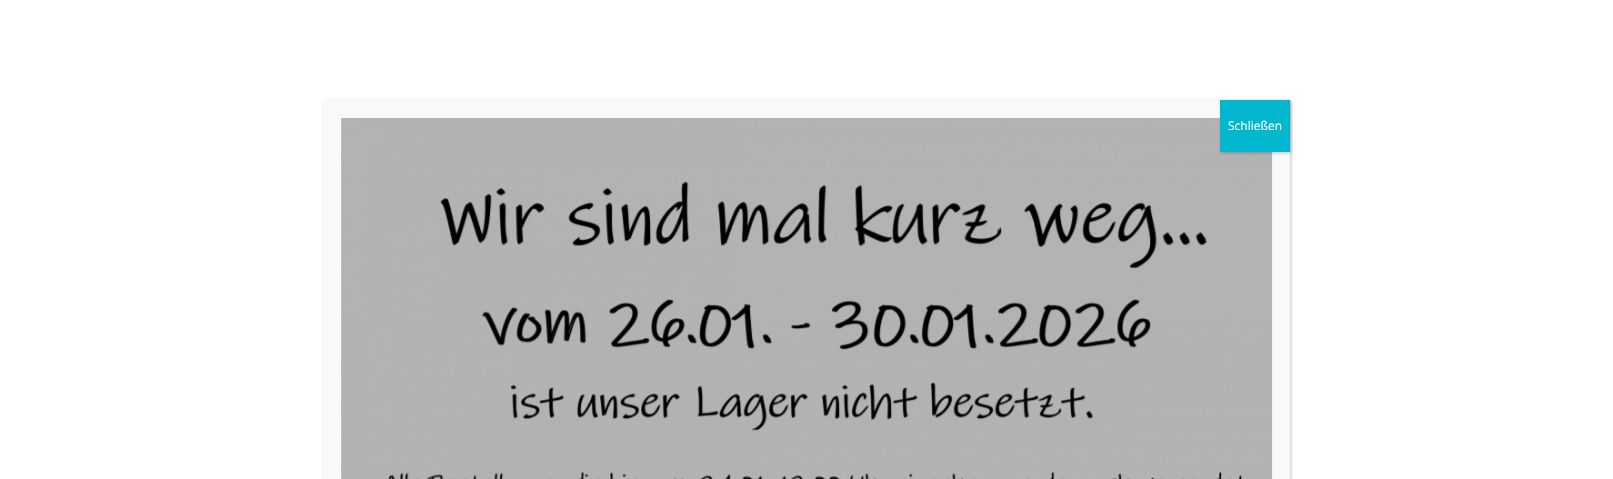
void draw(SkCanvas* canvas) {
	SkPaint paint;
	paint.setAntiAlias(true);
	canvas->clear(0xffffffff);
	paint.setColor(0x3b020202);
	paint.setMaskFilter(SkMaskFilter::MakeBlur(kNormal_SkBlurStyle, 1.5));
	canvas->drawRect(SkRect::MakeXYWH(324, 101, 967, 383), paint);
	paint.setMaskFilter(nullptr);
	paint.setColor(0xfff9f9f9);
	canvas->drawRect(SkRect::MakeXYWH(323, 100, 967, 379), paint);
	canvas->drawImageRect(SkImages::DeferredFromEncodedData(SkData::MakeFromFileName("img1.png")), SkRect::MakeXYWH(341, 118, 932, 361), SkSamplingOptions());
	paint.setColor(0x3b020202);
	paint.setMaskFilter(SkMaskFilter::MakeBlur(kNormal_SkBlurStyle, 1.5));
	canvas->drawRect(SkRect::MakeXYWH(1221, 101, 70, 52), paint);
	paint.setMaskFilter(nullptr);
	paint.setColor(0xff00b7cd);
	canvas->drawRect(SkRect::MakeXYWH(1220, 100, 70, 52), paint);
	SkFont f1(fontMgr->matchFamilyStyle("Open Sans", SkFontStyle::Normal()), 12);
	f1.setSubpixel(true);
	paint.setColor(0xffffffff);
	canvas->drawString("Schließen", 1228, 130, f1, paint);
}
